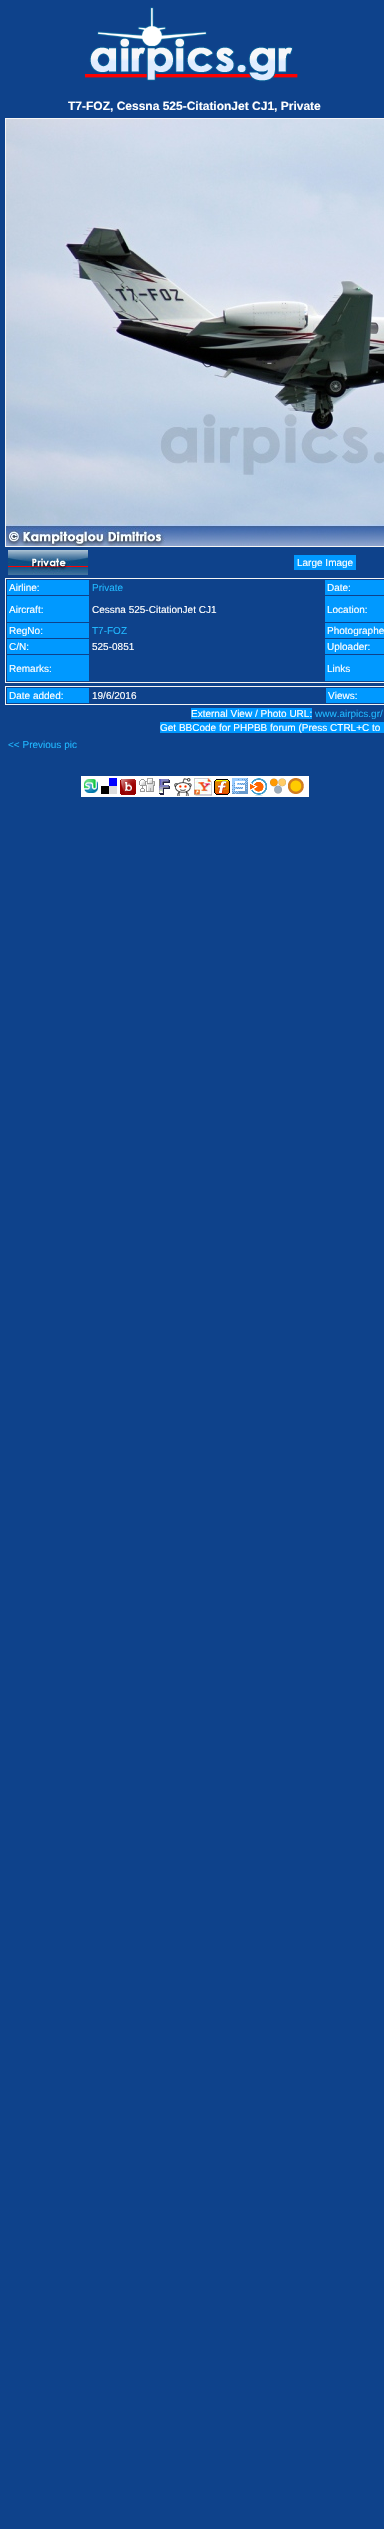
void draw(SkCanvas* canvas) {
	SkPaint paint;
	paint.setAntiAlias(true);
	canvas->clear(0xff0e428b);
	canvas->drawImageRect(SkImages::DeferredFromEncodedData(SkData::MakeFromFileName("img1.png")), SkRect::MakeXYWH(85, 7, 213, 75), SkSamplingOptions());
	SkFont f1(fontMgr->matchFamilyStyle("Liberation Sans", SkFontStyle::Bold()), 12);
	f1.setSubpixel(true);
	paint.setColor(0xffffffff);
	canvas->drawString("T7-FOZ, Cessna 525-CitationJet CJ1, Private", 68, 110, f1, paint);
	paint.setStroke(true);
	paint.setStrokeWidth(1);
	paint.setColor(0xfff5f5f5);
	canvas->drawRect(SkRect::MakeXYWH(5.5, 118.5, 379, 428), paint);
	canvas->drawImageRect(SkImages::DeferredFromEncodedData(SkData::MakeFromFileName("img2.png")), SkRect::MakeXYWH(6, 119, 378, 427), SkSamplingOptions());
	canvas->drawImageRect(SkImages::DeferredFromEncodedData(SkData::MakeFromFileName("img3.png")), SkRect::MakeXYWH(8, 550, 80, 25), SkSamplingOptions());
	paint.setStroke(false);
	paint.setColor(0xff0099ff);
	canvas->drawRect(SkRect::MakeXYWH(294, 555, 62, 15), paint);
	SkFont f2(fontMgr->matchFamilyStyle("Liberation Sans", SkFontStyle::Normal()), 10);
	f2.setSubpixel(true);
	paint.setColor(0xffffffff);
	canvas->drawString("Large Image", 297, 566, f2, paint);
	paint.setStroke(true);
	paint.setColor(0xfff5f5f5);
	canvas->drawRect(SkRect::MakeXYWH(5.5, 578.5, 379, 104), paint);
	paint.setStroke(false);
	paint.setColor(0xff0099ff);
	canvas->drawRect(SkRect::MakeXYWH(7, 580, 82, 15), paint);
	paint.setColor(0xffffffff);
	canvas->drawString("Airline:", 9, 591, f2, paint);
	paint.setColor(0xff1fb7ff);
	canvas->drawString("Private", 92, 591, f2, paint);
	paint.setColor(0xff0099ff);
	canvas->drawRect(SkRect::MakeXYWH(325, 580, 59, 15), paint);
	paint.setColor(0xffffffff);
	canvas->drawString("Date:", 327, 591, f2, paint);
	paint.setColor(0xff0099ff);
	canvas->drawRect(SkRect::MakeXYWH(7, 596, 82, 26), paint);
	paint.setColor(0xffffffff);
	canvas->drawString("Aircraft:", 9, 613, f2, paint);
	canvas->drawString("Cessna 525-CitationJet CJ1", 92, 613, f2, paint);
	paint.setColor(0xff0099ff);
	canvas->drawRect(SkRect::MakeXYWH(325, 596, 59, 26), paint);
	paint.setColor(0xffffffff);
	canvas->drawString("Location:", 327, 613, f2, paint);
	paint.setColor(0xff0099ff);
	canvas->drawRect(SkRect::MakeXYWH(7, 623, 82, 15), paint);
	paint.setColor(0xffffffff);
	canvas->drawString("RegNo:", 9, 634, f2, paint);
	paint.setColor(0xff1fb7ff);
	canvas->drawString("T7-FOZ", 92, 634, f2, paint);
	paint.setColor(0xff0099ff);
	canvas->drawRect(SkRect::MakeXYWH(325, 623, 59, 15), paint);
	paint.setColor(0xffffffff);
	canvas->drawString("Photographe", 327, 634, f2, paint);
	paint.setColor(0xff0099ff);
	canvas->drawRect(SkRect::MakeXYWH(7, 639, 82, 15), paint);
	paint.setColor(0xffffffff);
	canvas->drawString("C/N:", 9, 650, f2, paint);
	canvas->drawString("525-0851", 92, 650, f2, paint);
	paint.setColor(0xff0099ff);
	canvas->drawRect(SkRect::MakeXYWH(325, 639, 59, 15), paint);
	paint.setColor(0xffffffff);
	canvas->drawString("Uploader:", 327, 650, f2, paint);
	paint.setColor(0xff0099ff);
	canvas->drawRect(SkRect::MakeXYWH(7, 655, 82, 26), paint);
	paint.setColor(0xffffffff);
	canvas->drawString("Remarks:", 9, 672, f2, paint);
	paint.setColor(0xff0099ff);
	canvas->drawRect(SkRect::MakeXYWH(325, 655, 59, 26), paint);
	paint.setColor(0xffffffff);
	canvas->drawString("Links", 327, 672, f2, paint);
	paint.setStroke(true);
	paint.setColor(0xfff5f5f5);
	canvas->drawRect(SkRect::MakeXYWH(5.5, 686.5, 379, 18), paint);
	paint.setStroke(false);
	paint.setColor(0xff0099ff);
	canvas->drawRect(SkRect::MakeXYWH(7, 688, 82, 15), paint);
	paint.setColor(0xffffffff);
	canvas->drawString("Date added:", 9, 699, f2, paint);
	canvas->drawString("19/6/2016", 92, 699, f2, paint);
	paint.setColor(0xff0099ff);
	canvas->drawRect(SkRect::MakeXYWH(326, 688, 58, 15), paint);
	paint.setColor(0xffffffff);
	canvas->drawString("Views:", 328, 699, f2, paint);
	paint.setColor(0xff0099ff);
	canvas->drawRect(SkRect::MakeXYWH(191, 708, 121, 11), paint);
	paint.setColor(0xffffffff);
	canvas->drawString("External View / Photo URL:", 191, 717, f2, paint);
	paint.setColor(0xff1fb7ff);
	canvas->drawString("www.airpics.gr/", 315, 717, f2, paint);
	paint.setColor(0xff0099ff);
	canvas->drawRect(SkRect::MakeXYWH(160, 722, 224, 11), paint);
	paint.setColor(0xffffffff);
	canvas->drawString("Get BBCode for PHPBB forum (Press CTRL+C to", 160, 731, f2, paint);
	paint.setColor(0xff1fb7ff);
	canvas->drawString("<< Previous pic", 8, 748, f2, paint);
	paint.setColor(0xffffffff);
	canvas->drawRect(SkRect::MakeXYWH(81, 776, 228, 21), paint);
	canvas->drawImageRect(SkImages::DeferredFromEncodedData(SkData::MakeFromFileName("img4.png")), SkRect::MakeXYWH(84, 779, 14, 14), SkSamplingOptions());
	canvas->drawImageRect(SkImages::DeferredFromEncodedData(SkData::MakeFromFileName("img5.png")), SkRect::MakeXYWH(101, 778, 16, 16), SkSamplingOptions());
	canvas->drawImageRect(SkImages::DeferredFromEncodedData(SkData::MakeFromFileName("img6.png")), SkRect::MakeXYWH(120, 779, 16, 16), SkSamplingOptions());
	canvas->drawImageRect(SkImages::DeferredFromEncodedData(SkData::MakeFromFileName("img7.png")), SkRect::MakeXYWH(139, 778, 16, 14), SkSamplingOptions());
	canvas->drawImageRect(SkImages::DeferredFromEncodedData(SkData::MakeFromFileName("img8.png")), SkRect::MakeXYWH(159, 779, 11, 16), SkSamplingOptions());
	canvas->drawImageRect(SkImages::DeferredFromEncodedData(SkData::MakeFromFileName("img9.png")), SkRect::MakeXYWH(174, 778, 18, 18), SkSamplingOptions());
	canvas->drawImageRect(SkImages::DeferredFromEncodedData(SkData::MakeFromFileName("img10.png")), SkRect::MakeXYWH(194, 778, 18, 18), SkSamplingOptions());
	canvas->drawImageRect(SkImages::DeferredFromEncodedData(SkData::MakeFromFileName("img11.png")), SkRect::MakeXYWH(214, 779, 16, 16), SkSamplingOptions());
	canvas->drawImageRect(SkImages::DeferredFromEncodedData(SkData::MakeFromFileName("img12.png")), SkRect::MakeXYWH(232, 778, 16, 16), SkSamplingOptions());
	canvas->drawImageRect(SkImages::DeferredFromEncodedData(SkData::MakeFromFileName("img13.png")), SkRect::MakeXYWH(250, 778, 17, 18), SkSamplingOptions());
	canvas->drawImageRect(SkImages::DeferredFromEncodedData(SkData::MakeFromFileName("img14.png")), SkRect::MakeXYWH(270, 778, 16, 16), SkSamplingOptions());
	canvas->drawImageRect(SkImages::DeferredFromEncodedData(SkData::MakeFromFileName("img15.png")), SkRect::MakeXYWH(288, 778, 16, 16), SkSamplingOptions());
}
